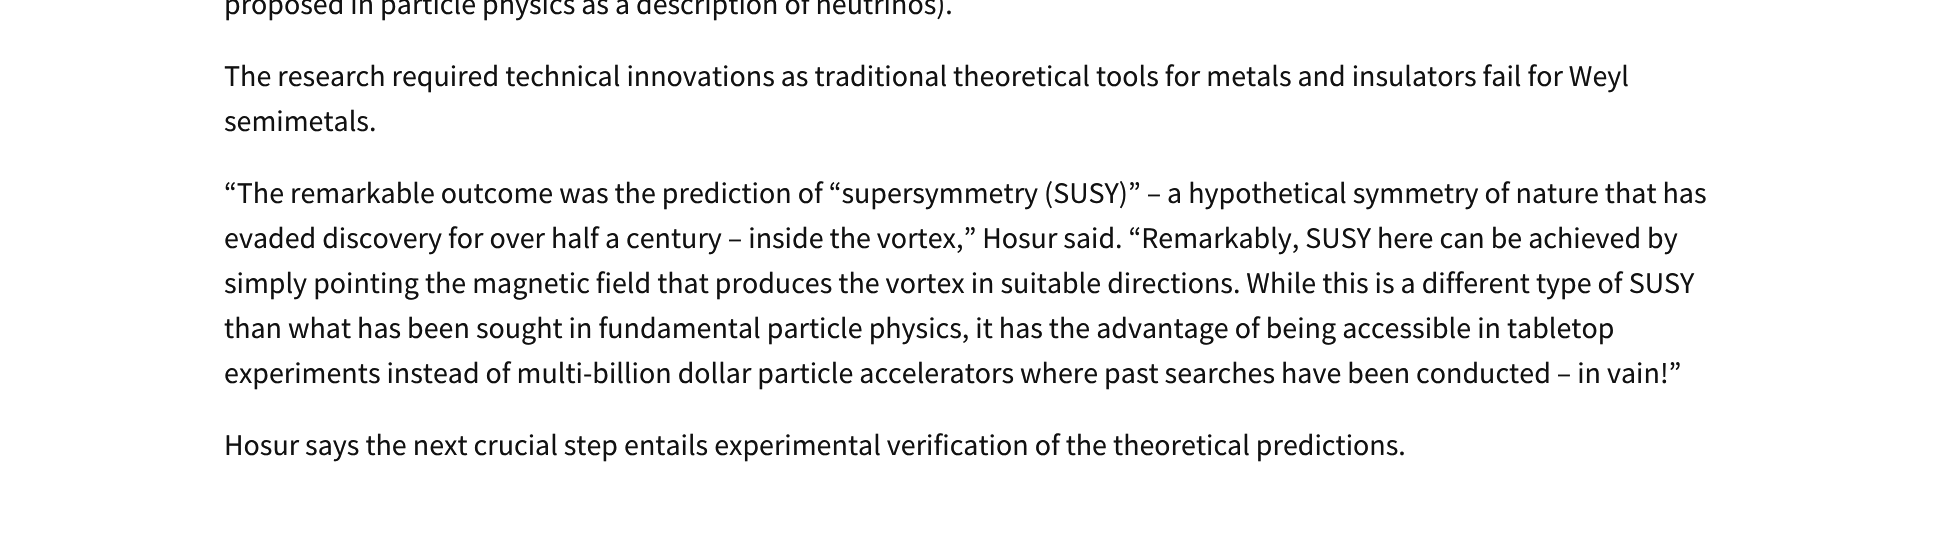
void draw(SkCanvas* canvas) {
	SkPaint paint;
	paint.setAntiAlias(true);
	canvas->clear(0xffffffff);
	SkFont f1(fontMgr->matchFamilyStyle("Source Sans Pro", SkFontStyle::Normal()), 30);
	f1.setSubpixel(true);
	paint.setColor(0xff111111);
	canvas->drawString("proposed in particle physics as a description of neutrinos).", 224, 14, f1, paint);
	canvas->drawString("The research required technical innovations as traditional theoretical tools for metals and insulators fail for Weyl", 224, 86, f1, paint);
	canvas->drawString("semimetals.", 224, 131, f1, paint);
	canvas->drawString("“The remarkable outcome was the prediction of “supersymmetry (SUSY)” – a hypothetical symmetry of nature that has", 224, 203, f1, paint);
	canvas->drawString("evaded discovery for over half a century – inside the vortex,” Hosur said. “Remarkably, SUSY here can be achieved by", 224, 248, f1, paint);
	canvas->drawString("simply pointing the magnetic field that produces the vortex in suitable directions. While this is a different type of SUSY", 224, 293, f1, paint);
	canvas->drawString("than what has been sought in fundamental particle physics, it has the advantage of being accessible in tabletop", 224, 338, f1, paint);
	canvas->drawString("experiments instead of multi-billion dollar particle accelerators where past searches have been conducted – in vain!”", 224, 383, f1, paint);
	canvas->drawString("Hosur says the next crucial step entails experimental verification of the theoretical predictions.", 224, 455, f1, paint);
}
